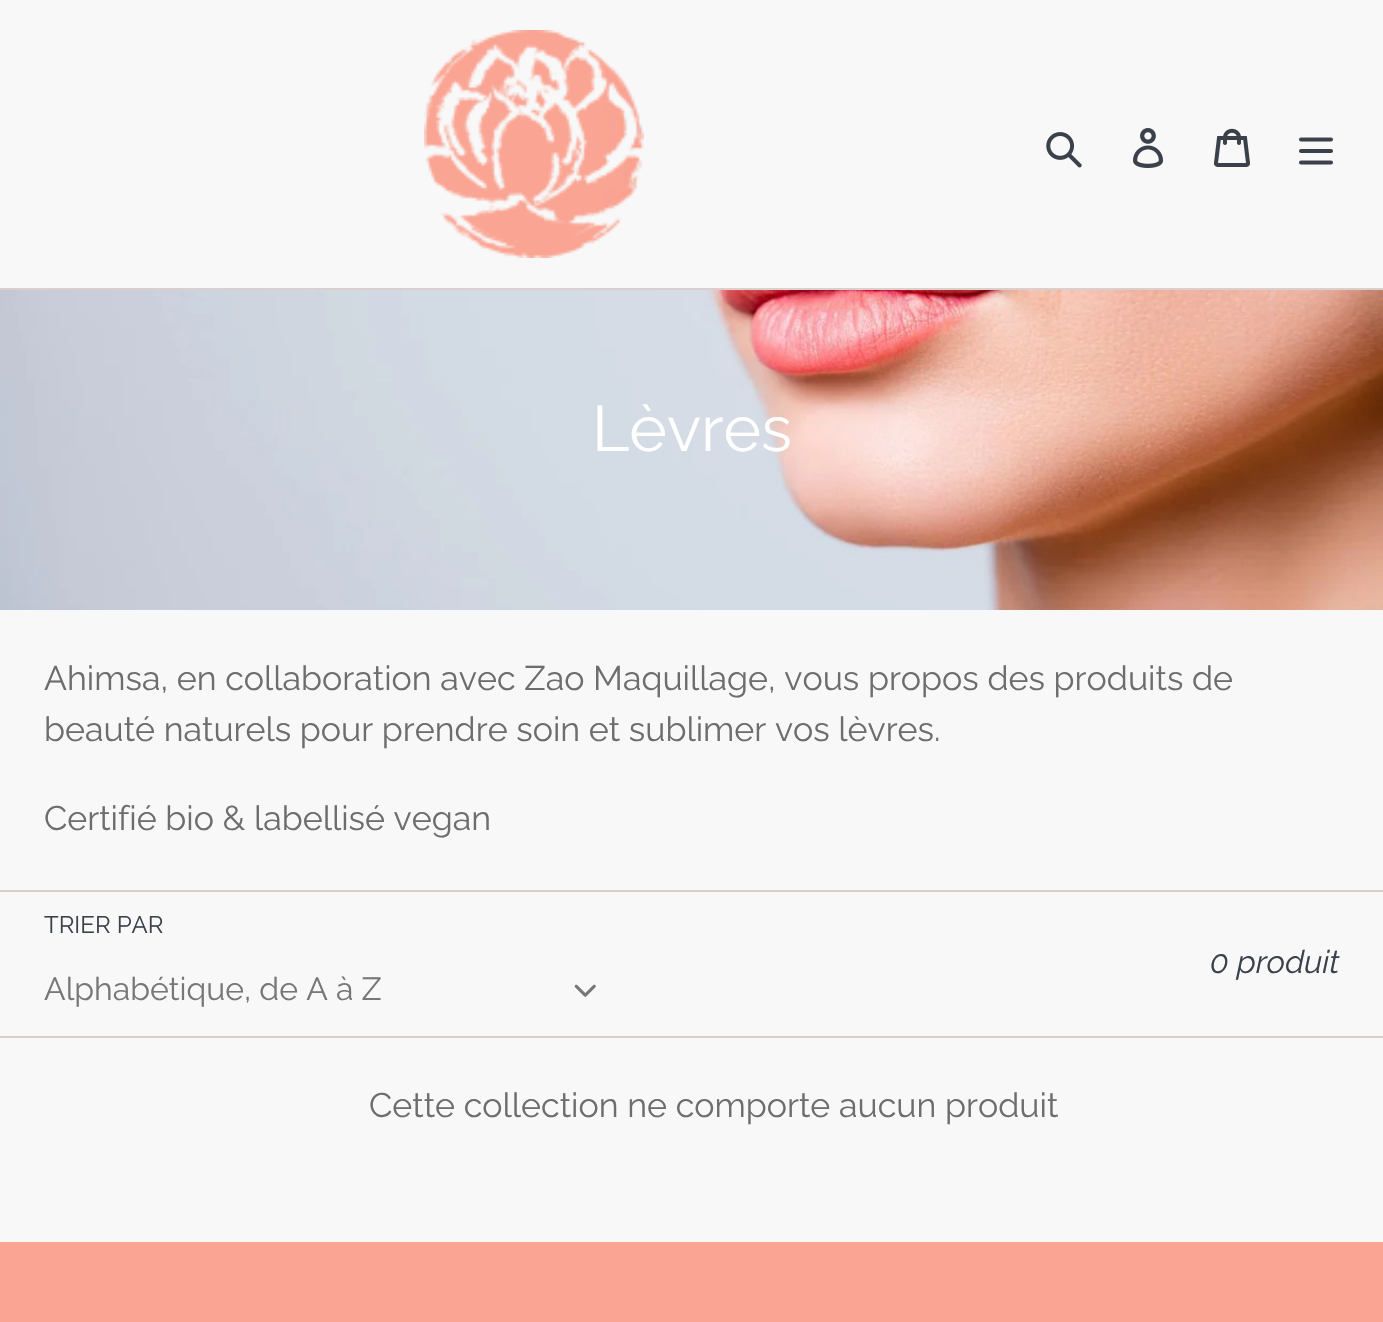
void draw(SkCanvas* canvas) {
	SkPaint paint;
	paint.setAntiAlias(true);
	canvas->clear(0xfff8f8f8);
	paint.setColor(0xffdacece);
	canvas->drawRect(SkRect::MakeXYWH(0, 288, 1383, 2), paint);
	canvas->drawImageRect(SkImages::DeferredFromEncodedData(SkData::MakeFromFileName("img1.png")), SkRect::MakeXYWH(424, 30, 220, 228), SkSamplingOptions());
	canvas->drawImageRect(SkImages::DeferredFromEncodedData(SkData::MakeFromFileName("img2.png")), SkRect::MakeXYWH(1046, 132, 36, 36), SkSamplingOptions());
	canvas->drawImageRect(SkImages::DeferredFromEncodedData(SkData::MakeFromFileName("img3.png")), SkRect::MakeXYWH(1133, 128, 31, 40), SkSamplingOptions());
	canvas->drawImageRect(SkImages::DeferredFromEncodedData(SkData::MakeFromFileName("img4.png")), SkRect::MakeXYWH(1214, 128, 36, 39), SkSamplingOptions());
	canvas->drawImageRect(SkImages::DeferredFromEncodedData(SkData::MakeFromFileName("img5.png")), SkRect::MakeXYWH(1299, 137, 34, 28), SkSamplingOptions());
	canvas->drawImageRect(SkImages::DeferredFromEncodedData(SkData::MakeFromFileName("img6.png")), SkRect::MakeXYWH(0, 290, 1383, 320), SkSamplingOptions());
	SkFont f1(fontMgr->matchFamilyStyle("Raleway", SkFontStyle::Normal()), 64);
	f1.setSubpixel(true);
	paint.setColor(0xffffffff);
	canvas->drawString("Lèvres", 592, 451, f1, paint);
	SkFont f2(fontMgr->matchFamilyStyle("Raleway", SkFontStyle::Normal()), 34);
	f2.setSubpixel(true);
	paint.setColor(0xff6d6d6d);
	canvas->drawString("Ahimsa, en collaboration avec Zao Maquillage, vous propos des produits de", 44, 690, f2, paint);
	canvas->drawString("beauté naturels pour prendre soin et sublimer vos lèvres.", 44, 741, f2, paint);
	canvas->drawString("Certifié bio & labellisé vegan", 44, 830, f2, paint);
	paint.setColor(0xffdacece);
	canvas->drawRect(SkRect::MakeXYWH(0, 890, 1383, 2), paint);
	canvas->drawRect(SkRect::MakeXYWH(0, 1036, 1383, 2), paint);
	SkFont f3(fontMgr->matchFamilyStyle("Raleway", SkFontStyle::Normal()), 24);
	f3.setSubpixel(true);
	paint.setColor(0xff3b414a);
	canvas->drawString("TRIER PAR", 44, 933, f3, paint);
	SkFont f4(fontMgr->matchFamilyStyle("Raleway", SkFontStyle::Normal()), 32);
	f4.setSubpixel(true);
	paint.setColor(0xff777777);
	canvas->drawString("Alphabétique, de A à Z", 44, 1000, f4, paint);
	canvas->drawImageRect(SkImages::DeferredFromEncodedData(SkData::MakeFromFileName("img7.png")), SkRect::MakeXYWH(574, 984, 22, 13), SkSamplingOptions());
	SkFont f5(fontMgr->matchFamilyStyle("Raleway", SkFontStyle::Italic()), 32);
	f5.setSubpixel(true);
	paint.setColor(0xff3b414a);
	canvas->drawString("0 produit", 1210, 973, f5, paint);
	paint.setColor(0xff6d6d6d);
	canvas->drawString("Cette collection ne comporte aucun produit", 369, 1117, f2, paint);
	paint.setColor(0xfffaa493);
	canvas->drawRect(SkRect::MakeXYWH(0, 1242, 1383, 80), paint);
}
